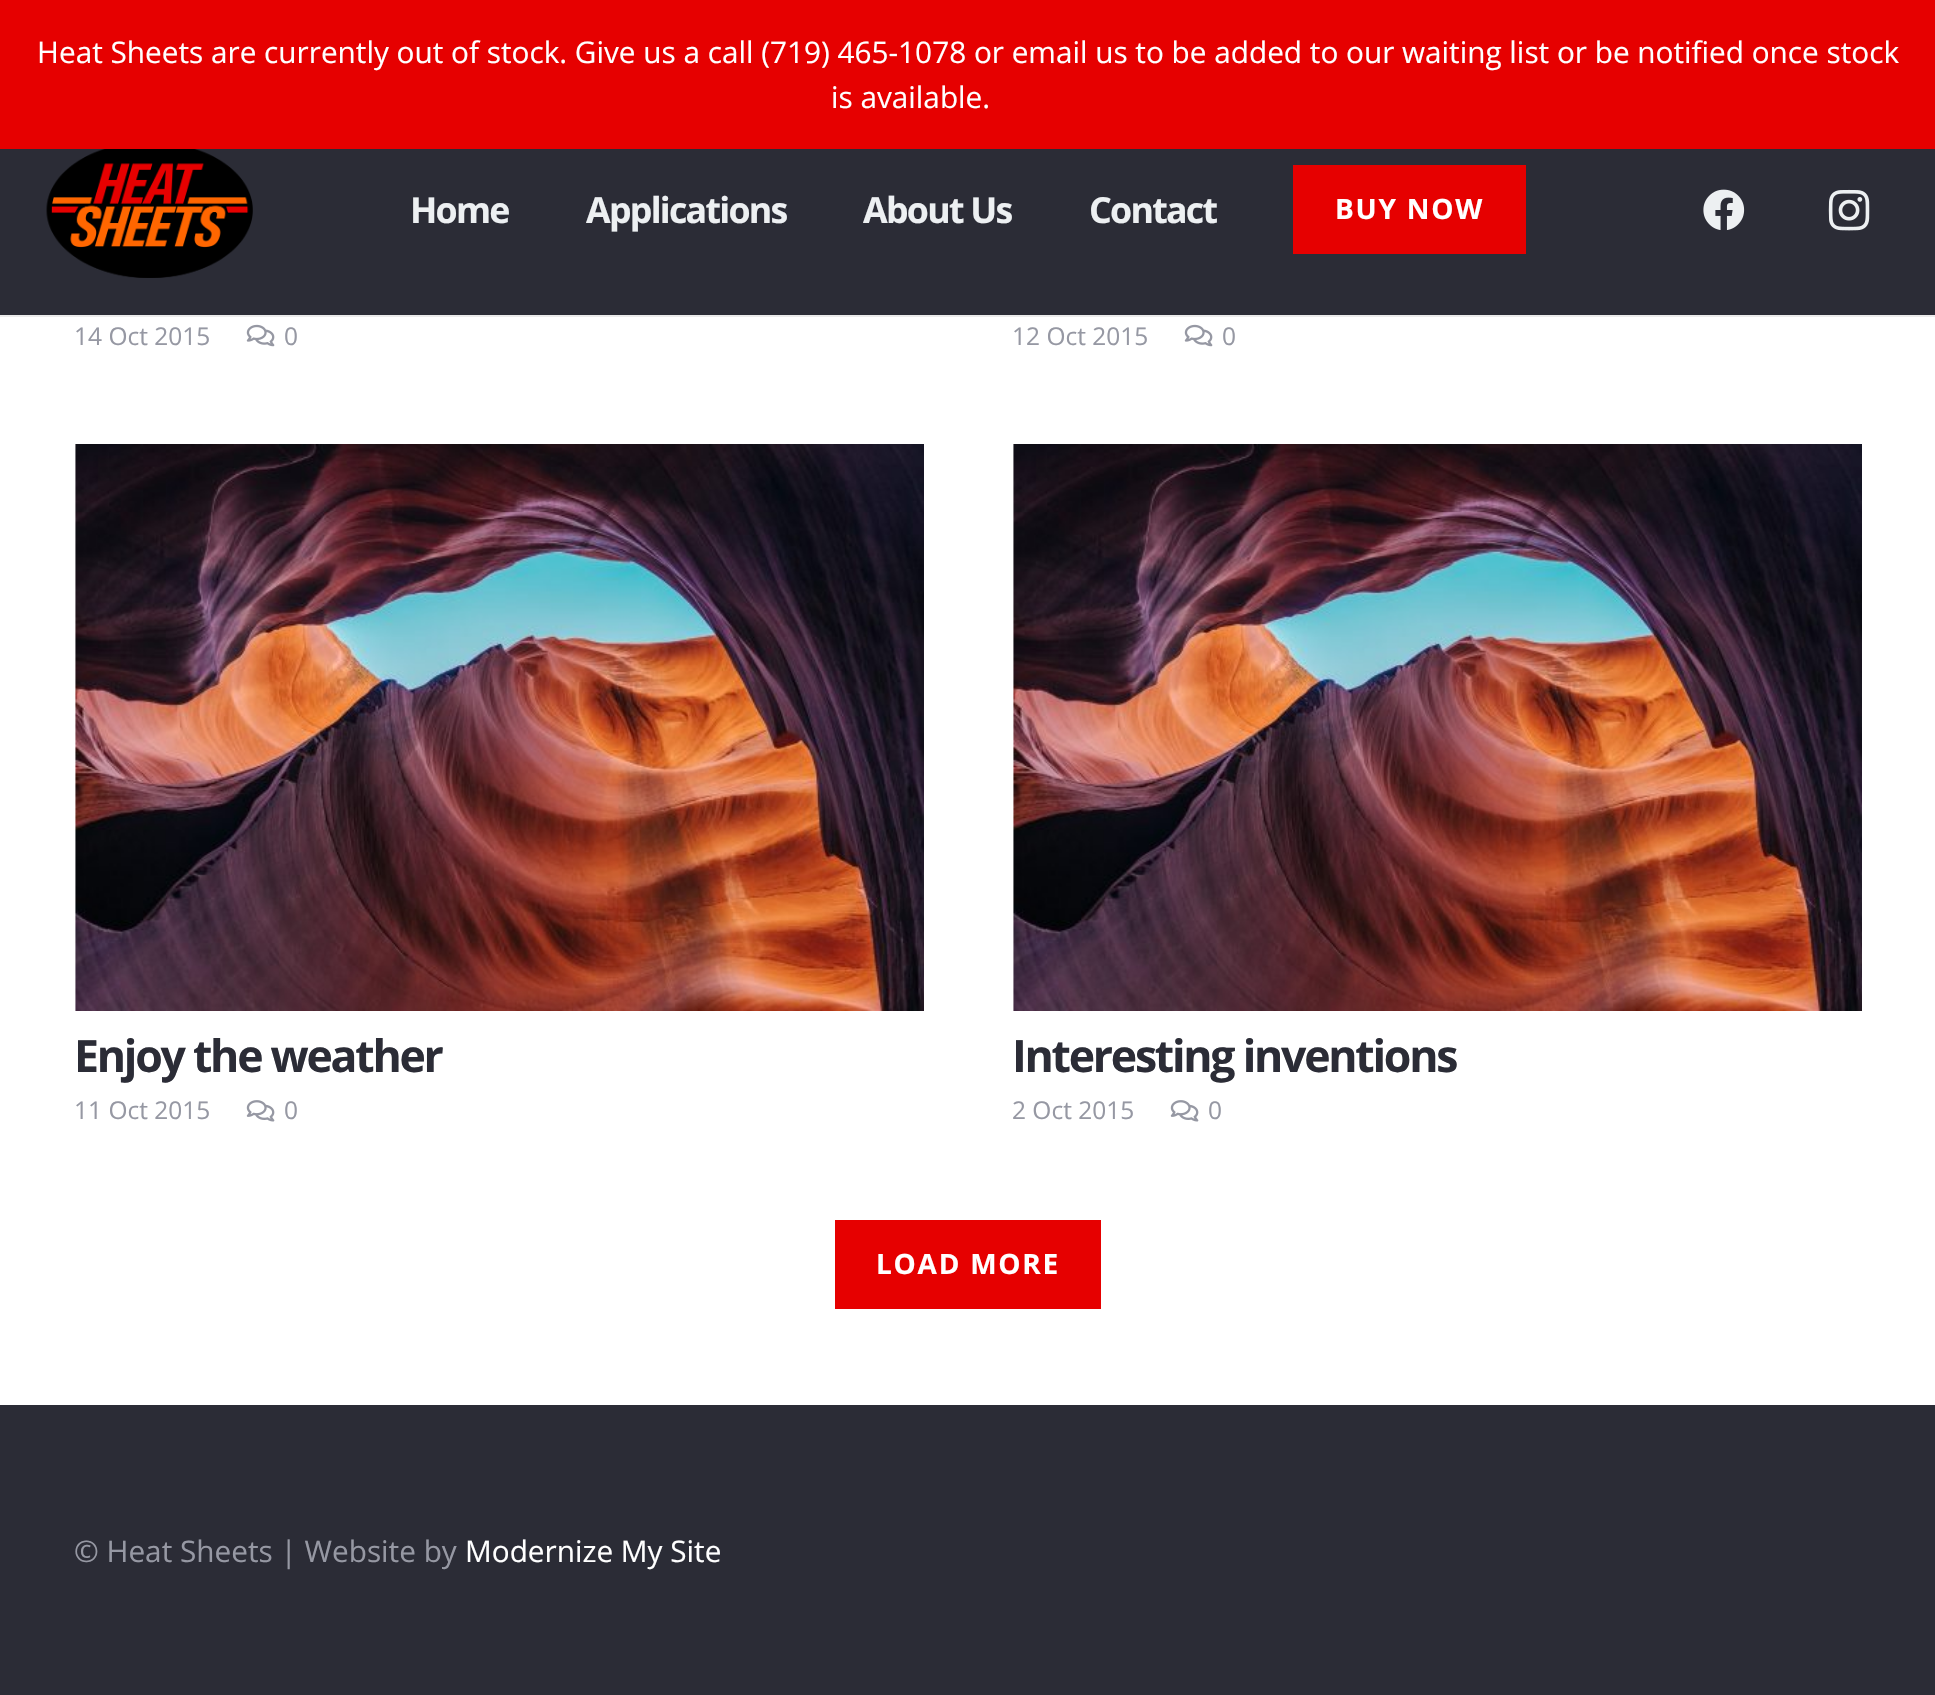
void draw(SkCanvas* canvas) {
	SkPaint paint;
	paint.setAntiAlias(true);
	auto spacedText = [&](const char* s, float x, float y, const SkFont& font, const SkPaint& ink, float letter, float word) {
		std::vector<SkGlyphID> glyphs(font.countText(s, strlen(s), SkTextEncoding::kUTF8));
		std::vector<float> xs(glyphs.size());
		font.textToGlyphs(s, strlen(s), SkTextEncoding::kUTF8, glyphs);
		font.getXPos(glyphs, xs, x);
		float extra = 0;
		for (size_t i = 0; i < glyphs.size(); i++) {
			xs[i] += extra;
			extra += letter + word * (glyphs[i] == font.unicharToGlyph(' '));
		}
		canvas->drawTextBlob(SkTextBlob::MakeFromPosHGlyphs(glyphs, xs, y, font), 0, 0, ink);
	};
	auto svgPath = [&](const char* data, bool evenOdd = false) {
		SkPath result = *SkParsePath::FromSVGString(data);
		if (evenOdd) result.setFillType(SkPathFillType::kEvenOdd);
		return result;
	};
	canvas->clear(0xffffffff);
	paint.setColor(0xffe60000);
	canvas->drawRect(SkRect::MakeXYWH(0, 0, 1935, 149), paint);
	SkFont f1(fontMgr->matchFamilyStyle("Open Sans", SkFontStyle::Normal()), 29.75);
	f1.setSubpixel(true);
	paint.setColor(0xffffffff);
	canvas->drawString("Heat Sheets are currently out of stock. Give us a call (719) 465-1078 or email us to be added to our waiting list or be notified once stock", 37, 63, f1, paint);
	canvas->drawString("is available.", 831, 108, f1, paint);
	paint.setColor(0xffebebeb);
	canvas->drawPath(svgPath("M0 315V317H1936V107V315Z"), paint);
	paint.setColor(0xff2b2c36);
	canvas->drawRect(SkRect::MakeXYWH(0, 149, 1935, 166), paint);
	canvas->drawImageRect(SkImages::DeferredFromEncodedData(SkData::MakeFromFileName("img1.png")), SkRect::MakeXYWH(46, 149, 207, 129), SkSamplingOptions());
	SkFont f2(fontMgr->matchFamilyStyle("Open Sans", SkFontStyle::Bold()), 35.75);
	f2.setSubpixel(true);
	paint.setColor(0xffedf0f2);
	spacedText("Home", 410, 223, f2, paint, -1.75, 0);
	spacedText("Applications", 586, 223, f2, paint, -1.75, 0);
	spacedText("About Us", 863, 223, f2, paint, -1.75, 0);
	spacedText("Contact", 1089, 223, f2, paint, -1.75, 0);
	paint.setColor(0xffe60000);
	canvas->drawRect(SkRect::MakeXYWH(1293, 165, 233, 89), paint);
	SkFont f3(fontMgr->matchFamilyStyle("Open Sans", SkFontStyle::Bold()), 28);
	f3.setSubpixel(true);
	paint.setColor(0xffffffff);
	spacedText("BUY NOW", 1335, 219, f3, paint, 1.75, 0);
	canvas->drawImageRect(SkImages::DeferredFromEncodedData(SkData::MakeFromFileName("img2.png")), SkRect::MakeXYWH(1703, 189, 42, 41), SkSamplingOptions());
	canvas->drawImageRect(SkImages::DeferredFromEncodedData(SkData::MakeFromFileName("img3.png")), SkRect::MakeXYWH(1828, 189, 42, 42), SkSamplingOptions());
	SkFont f4(fontMgr->matchFamilyStyle("Open Sans", SkFontStyle::Normal()), 24.5);
	f4.setSubpixel(true);
	paint.setColor(0xff9698a3);
	canvas->drawString("14 Oct 2015", 74, 345, f4, paint);
	canvas->drawImageRect(SkImages::DeferredFromEncodedData(SkData::MakeFromFileName("img4.png")), SkRect::MakeXYWH(246, 324, 29, 23), SkSamplingOptions());
	canvas->drawString("0", 284, 345, f4, paint);
	canvas->drawString("12 Oct 2015", 1012, 345, f4, paint);
	canvas->drawImageRect(SkImages::DeferredFromEncodedData(SkData::MakeFromFileName("img4.png")), SkRect::MakeXYWH(1184, 324, 29, 23), SkSamplingOptions());
	canvas->drawString("0", 1222, 345, f4, paint);
	canvas->drawImageRect(SkImages::DeferredFromEncodedData(SkData::MakeFromFileName("img5.png")), SkRect::MakeXYWH(75, 444, 849, 567), SkSamplingOptions());
	SkFont f5(fontMgr->matchFamilyStyle("Open Sans", SkFontStyle::Bold()), 44.6);
	f5.setSubpixel(true);
	paint.setColor(0xff2b2c36);
	spacedText("Enjoy the weather", 74, 1072, f5, paint, -2.25, 0);
	paint.setColor(0xff9698a3);
	canvas->drawString("11 Oct 2015", 74, 1119, f4, paint);
	canvas->drawImageRect(SkImages::DeferredFromEncodedData(SkData::MakeFromFileName("img6.png")), SkRect::MakeXYWH(246, 1100, 29, 22), SkSamplingOptions());
	canvas->drawString("0", 284, 1119, f4, paint);
	canvas->drawImageRect(SkImages::DeferredFromEncodedData(SkData::MakeFromFileName("img7.png")), SkRect::MakeXYWH(1013, 444, 849, 567), SkSamplingOptions());
	paint.setColor(0xff2b2c36);
	spacedText("Interesting inventions", 1012, 1072, f5, paint, -2.25, 0);
	paint.setColor(0xff9698a3);
	canvas->drawString("2 Oct 2015", 1012, 1119, f4, paint);
	canvas->drawImageRect(SkImages::DeferredFromEncodedData(SkData::MakeFromFileName("img6.png")), SkRect::MakeXYWH(1170, 1100, 29, 22), SkSamplingOptions());
	canvas->drawString("0", 1208, 1119, f4, paint);
	paint.setColor(0xffe60000);
	canvas->drawRect(SkRect::MakeXYWH(835, 1220, 266, 89), paint);
	paint.setColor(0xffffffff);
	spacedText("LOAD MORE", 876, 1274, f3, paint, 1.75, 0);
	paint.setColor(0xff2b2c36);
	canvas->drawRect(SkRect::MakeXYWH(0, 1405, 1935, 290), paint);
	paint.setColor(0xff9698a3);
	canvas->drawString("© Heat Sheets | Website by", 74, 1562, f1, paint);
	paint.setColor(0xffffffff);
	canvas->drawString("Modernize My Site", 465, 1562, f1, paint);
}
